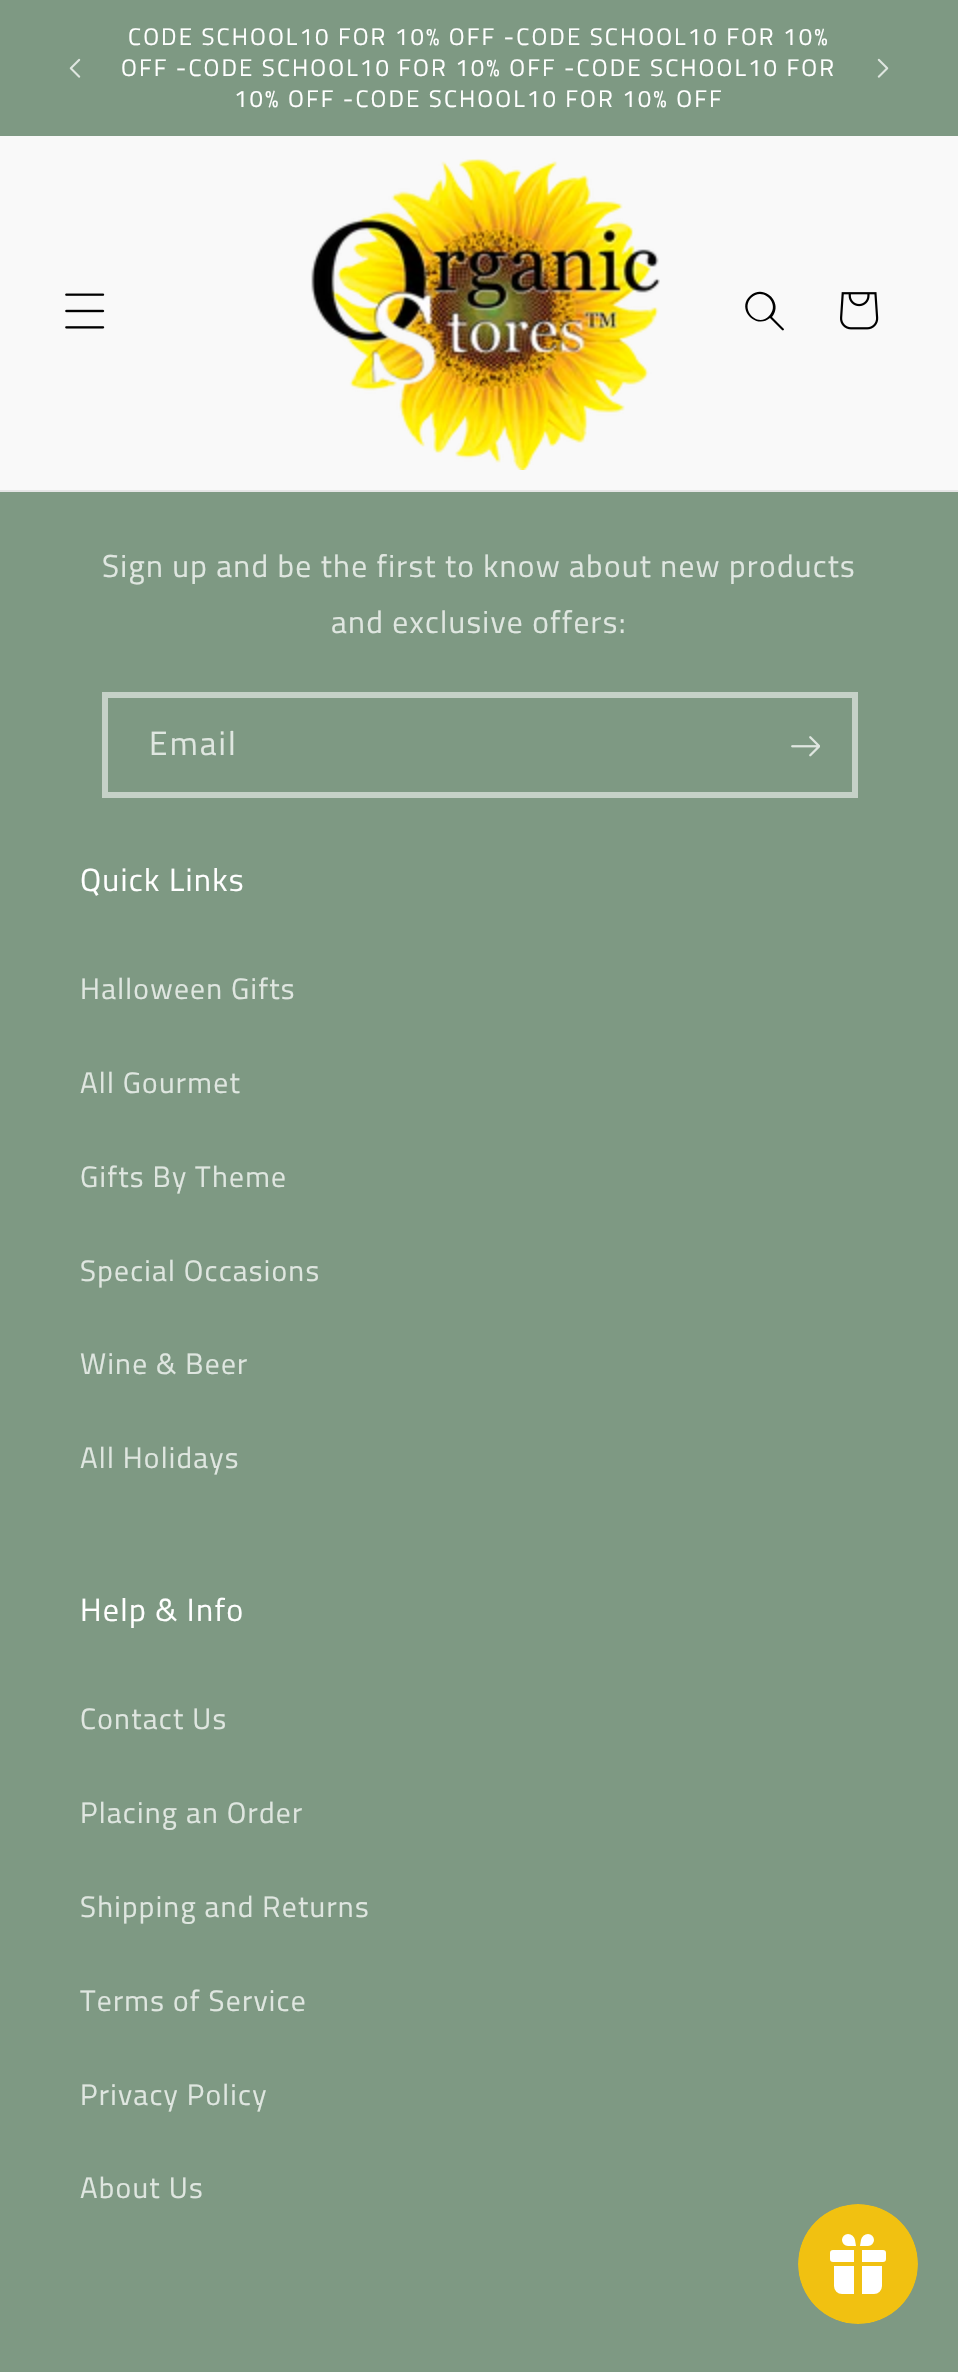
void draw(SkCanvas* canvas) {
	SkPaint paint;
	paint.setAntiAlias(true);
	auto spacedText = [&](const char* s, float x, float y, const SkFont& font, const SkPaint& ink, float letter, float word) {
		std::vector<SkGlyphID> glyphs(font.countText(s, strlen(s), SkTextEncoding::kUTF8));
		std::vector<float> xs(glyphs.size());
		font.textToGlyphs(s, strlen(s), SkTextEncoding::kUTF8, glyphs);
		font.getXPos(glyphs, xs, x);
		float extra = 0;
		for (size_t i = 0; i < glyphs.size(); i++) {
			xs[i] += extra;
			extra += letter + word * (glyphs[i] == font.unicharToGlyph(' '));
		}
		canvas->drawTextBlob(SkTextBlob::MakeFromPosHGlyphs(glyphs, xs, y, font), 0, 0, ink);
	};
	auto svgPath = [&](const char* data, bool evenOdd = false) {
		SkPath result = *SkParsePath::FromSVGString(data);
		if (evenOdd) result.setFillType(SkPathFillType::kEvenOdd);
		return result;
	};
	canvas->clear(0xff7e9983);
	canvas->drawImageRect(SkImages::DeferredFromEncodedData(SkData::MakeFromFileName("img1.png")), SkRect::MakeXYWH(69, 58, 12, 20), SkSamplingOptions());
	SkFont f1(fontMgr->matchFamilyStyle("Titillium Web", SkFontStyle::Normal()), 24);
	f1.setSubpixel(true);
	paint.setColor(0xffffffff);
	spacedText("CODE SCHOOL10 FOR 10% OFF -CODE SCHOOL10 FOR 10%", 128, 45, f1, paint, 2.1, 0);
	spacedText("OFF -CODE SCHOOL10 FOR 10% OFF -CODE SCHOOL10 FOR", 121, 76, f1, paint, 2.1, 0);
	spacedText("10% OFF -CODE SCHOOL10 FOR 10% OFF", 234, 107, f1, paint, 2.1, 0);
	canvas->drawImageRect(SkImages::DeferredFromEncodedData(SkData::MakeFromFileName("img2.png")), SkRect::MakeXYWH(877, 58, 12, 20), SkSamplingOptions());
	paint.setColor(0xfff9f9f9);
	canvas->drawRect(SkRect::MakeXYWH(0, 136, 958, 354), paint);
	paint.setColor(0xffe5e5e5);
	canvas->drawRect(SkRect::MakeXYWH(0, 490, 958, 2), paint);
	canvas->drawImageRect(SkImages::DeferredFromEncodedData(SkData::MakeFromFileName("img3.png")), SkRect::MakeXYWH(65, 293, 40, 36), SkSamplingOptions());
	canvas->drawImageRect(SkImages::DeferredFromEncodedData(SkData::MakeFromFileName("img4.png")), SkRect::MakeXYWH(311, 158, 349, 312), SkSamplingOptions());
	paint.setColor(0xff000000);
	canvas->drawPath(svgPath("M769 316C758 328 740 310 751 298C763 286 781 304 769 316M770 318C756 330 736 309 750 296C764 283 784 303 772 317L784 329C784 330 783 331 782 330Z", true), paint);
	canvas->drawImageRect(SkImages::DeferredFromEncodedData(SkData::MakeFromFileName("img5.png")), SkRect::MakeXYWH(840, 292, 39, 38), SkSamplingOptions());
	SkFont f2(fontMgr->matchFamilyStyle("Titillium Web", SkFontStyle::Normal()), 31.5);
	f2.setSubpixel(true);
	paint.setColor(0xffdfe6e0);
	spacedText("Sign up and be the first to know about new products", 102, 577, f2, paint, 1.25, 0);
	spacedText("and exclusive offers:", 331, 633, f2, paint, 1.25, 0);
	paint.setStroke(true);
	paint.setStrokeWidth(6);
	paint.setColor(0xffc5d1c7);
	canvas->drawRect(SkRect::MakeXYWH(105, 695, 750, 100), paint);
	SkFont f3(fontMgr->matchFamilyStyle("Titillium Web", SkFontStyle::Normal()), 33.5);
	f3.setSubpixel(true);
	paint.setStroke(false);
	paint.setColor(0xffdfe6e0);
	spacedText("Email", 149, 755, f3, paint, 2.1, 0);
	canvas->drawImageRect(SkImages::DeferredFromEncodedData(SkData::MakeFromFileName("img6.png")), SkRect::MakeXYWH(791, 736, 29, 21), SkSamplingOptions());
	SkFont f4(fontMgr->matchFamilyStyle("Titillium Web", SkFontStyle::Normal()), 32);
	f4.setSubpixel(true);
	paint.setColor(0xffffffff);
	spacedText("Quick Links", 80, 891, f4, paint, 1.25, 0);
	SkFont f5(fontMgr->matchFamilyStyle("Titillium Web", SkFontStyle::Normal()), 29.5);
	f5.setSubpixel(true);
	paint.setColor(0xffdfe6e0);
	spacedText("Halloween Gifts", 80, 999, f5, paint, 1.25, 0);
	spacedText("All Gourmet", 80, 1093, f5, paint, 1.25, 0);
	spacedText("Gifts By Theme", 80, 1187, f5, paint, 1.25, 0);
	spacedText("Special Occasions", 80, 1281, f5, paint, 1.25, 0);
	spacedText("Wine & Beer", 80, 1374, f5, paint, 1.25, 0);
	spacedText("All Holidays", 80, 1468, f5, paint, 1.25, 0);
	paint.setColor(0xffffffff);
	spacedText("Help & Info", 80, 1621, f4, paint, 1.25, 0);
	paint.setColor(0xffdfe6e0);
	spacedText("Contact Us", 80, 1729, f5, paint, 1.25, 0);
	spacedText("Placing an Order", 80, 1823, f5, paint, 1.25, 0);
	spacedText("Shipping and Returns", 80, 1917, f5, paint, 1.25, 0);
	spacedText("Terms of Service", 80, 2011, f5, paint, 1.25, 0);
	spacedText("Privacy Policy", 80, 2105, f5, paint, 1.25, 0);
	spacedText("About Us", 80, 2198, f5, paint, 1.25, 0);
	canvas->drawImageRect(SkImages::DeferredFromEncodedData(SkData::MakeFromFileName("img7.png")), SkRect::MakeXYWH(798, 2204, 120, 120), SkSamplingOptions());
}
